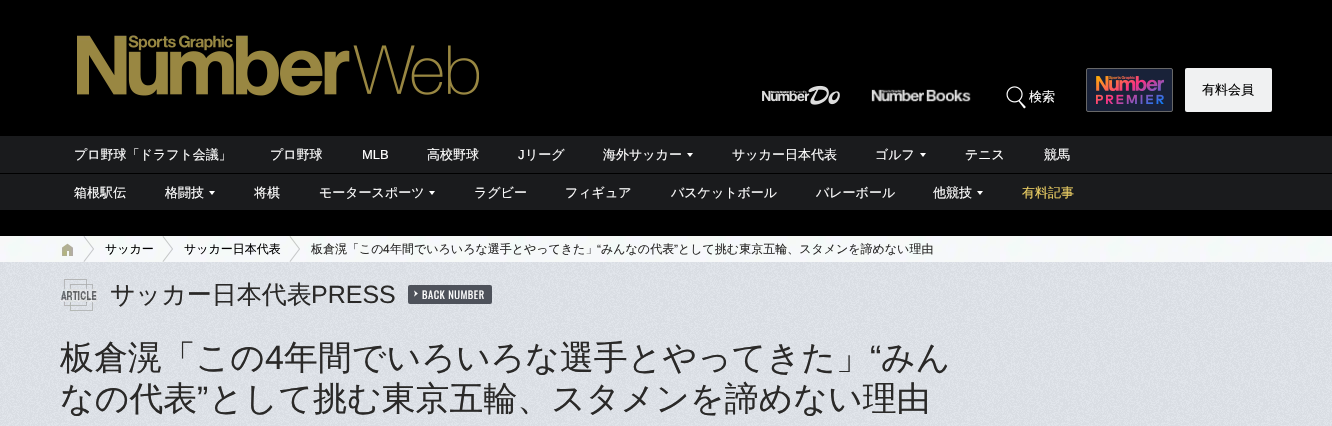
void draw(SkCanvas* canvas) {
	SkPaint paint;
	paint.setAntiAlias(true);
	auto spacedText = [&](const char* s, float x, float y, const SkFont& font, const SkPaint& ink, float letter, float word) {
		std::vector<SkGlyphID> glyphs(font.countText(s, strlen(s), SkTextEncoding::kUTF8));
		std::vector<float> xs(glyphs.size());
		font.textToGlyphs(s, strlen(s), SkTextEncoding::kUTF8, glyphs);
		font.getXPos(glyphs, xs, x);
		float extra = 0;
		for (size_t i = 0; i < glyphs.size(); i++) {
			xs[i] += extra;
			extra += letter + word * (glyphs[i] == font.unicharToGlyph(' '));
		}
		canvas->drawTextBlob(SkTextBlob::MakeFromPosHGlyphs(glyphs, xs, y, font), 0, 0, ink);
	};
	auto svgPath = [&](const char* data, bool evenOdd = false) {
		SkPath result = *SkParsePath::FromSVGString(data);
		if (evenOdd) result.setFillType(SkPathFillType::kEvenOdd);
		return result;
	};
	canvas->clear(0xff000000);
	canvas->drawImageRect(SkImages::DeferredFromEncodedData(SkData::MakeFromFileName("img1.png")), SkRect::MakeXYWH(77, 35, 402, 61), SkSamplingOptions());
	canvas->drawImageRect(SkImages::DeferredFromEncodedData(SkData::MakeFromFileName("img2.png")), SkRect::MakeXYWH(762, 85, 78, 20), SkSamplingOptions());
	canvas->drawImageRect(SkImages::DeferredFromEncodedData(SkData::MakeFromFileName("img3.png")), SkRect::MakeXYWH(871, 89, 100, 13), SkSamplingOptions());
	canvas->drawImageRect(SkImages::DeferredFromEncodedData(SkData::MakeFromFileName("img4.png")), SkRect::MakeXYWH(1006, 86, 20, 23), SkSamplingOptions());
	SkFont f1(fontMgr->matchFamilyStyle("WenQuanYi Zen Hei", SkFontStyle(500, SkFontStyle::kNormal_Width, SkFontStyle::kUpright_Slant)), 13);
	f1.setSubpixel(true);
	paint.setColor(0xffffffff);
	canvas->drawString("検索", 1029, 101, f1, paint);
	paint.setColor(0xff192239);
	canvas->drawRoundRect(SkRect::MakeXYWH(1086.5, 68.5, 86, 43), 1.5, 1.5, paint);
	paint.setStroke(true);
	paint.setStrokeWidth(1);
	paint.setColor(0xff676767);
	canvas->drawRoundRect(SkRect::MakeXYWH(1086.5, 68.5, 86, 43), 1.5, 1.5, paint);
	canvas->drawImageRect(SkImages::DeferredFromEncodedData(SkData::MakeFromFileName("img5.png")), SkRect::MakeXYWH(1096, 76, 68, 28), SkSamplingOptions());
	paint.setStroke(false);
	paint.setColor(0xfff0f1f2);
	canvas->drawRoundRect(SkRect::MakeXYWH(1185, 68, 87, 44), 2, 2, paint);
	paint.setColor(0xff000000);
	canvas->drawString("有料会員", 1202, 94, f1, paint);
	paint.setColor(0xff1a1b1d);
	canvas->drawRect(SkRect::MakeXYWH(0, 136, 1332, 37), paint);
	paint.setColor(0xffffffff);
	canvas->drawString("プロ野球「ドラフト会議」", 74, 159, f1, paint);
	canvas->drawString("プロ野球", 270, 159, f1, paint);
	SkFont f2(fontMgr->matchFamilyStyle("Liberation Sans", SkFontStyle::Normal()), 13);
	f2.setSubpixel(true);
	canvas->drawString("MLB", 362, 159, f2, paint);
	canvas->drawString("高校野球", 427, 159, f1, paint);
	canvas->drawString("J", 518, 159, f2, paint);
	canvas->drawString("リーグ", 525, 159, f1, paint);
	canvas->drawString("海外サッカー", 603, 159, f1, paint);
	canvas->drawPath(svgPath("M687 153H693L690 157Z"), paint);
	canvas->drawString("サッカー日本代表", 732, 159, f1, paint);
	canvas->drawString("ゴルフ", 875, 159, f1, paint);
	canvas->drawPath(svgPath("M920 153H926L923 157Z"), paint);
	canvas->drawString("テニス", 965, 159, f1, paint);
	canvas->drawString("競馬", 1044, 159, f1, paint);
	paint.setColor(0xff1a1b1d);
	canvas->drawRect(SkRect::MakeXYWH(0, 174, 1332, 36), paint);
	paint.setColor(0xffffffff);
	canvas->drawString("箱根駅伝", 74, 197, f1, paint);
	canvas->drawString("格闘技", 165, 197, f1, paint);
	canvas->drawPath(svgPath("M209 191H215L212 195Z"), paint);
	canvas->drawString("将棋", 254, 197, f1, paint);
	canvas->drawString("モータースポーツ", 319, 197, f1, paint);
	canvas->drawPath(svgPath("M429 191H435L432 195Z"), paint);
	canvas->drawString("ラグビー", 474, 197, f1, paint);
	canvas->drawString("フィギュア", 565, 197, f1, paint);
	canvas->drawString("バスケットボール", 671, 197, f1, paint);
	canvas->drawString("バレーボール", 816, 197, f1, paint);
	canvas->drawString("他競技", 933, 197, f1, paint);
	canvas->drawPath(svgPath("M977 191H983L980 195Z"), paint);
	paint.setColor(0xffebce63);
	canvas->drawString("有料記事", 1022, 197, f1, paint);
	canvas->drawImageRect(SkImages::DeferredFromEncodedData(SkData::MakeFromFileName("img6.png")), SkRect::MakeXYWH(0, 236, 1332, 26), SkSamplingOptions());
	canvas->drawImageRect(SkImages::DeferredFromEncodedData(SkData::MakeFromFileName("img7.png")), SkRect::MakeXYWH(83, 236, 11, 26), SkSamplingOptions());
	canvas->drawImageRect(SkImages::DeferredFromEncodedData(SkData::MakeFromFileName("img8.png")), SkRect::MakeXYWH(62, 243, 11, 13), SkSamplingOptions());
	canvas->drawImageRect(SkImages::DeferredFromEncodedData(SkData::MakeFromFileName("img9.png")), SkRect::MakeXYWH(162, 236, 11, 26), SkSamplingOptions());
	SkFont f3(fontMgr->matchFamilyStyle("WenQuanYi Zen Hei", SkFontStyle(500, SkFontStyle::kNormal_Width, SkFontStyle::kUpright_Slant)), 12);
	f3.setSubpixel(true);
	paint.setColor(0xff000000);
	canvas->drawString("サッカー", 105, 253, f3, paint);
	canvas->drawImageRect(SkImages::DeferredFromEncodedData(SkData::MakeFromFileName("img10.png")), SkRect::MakeXYWH(289, 236, 11, 26), SkSamplingOptions());
	canvas->drawString("サッカー日本代表", 184, 253, f3, paint);
	paint.setColor(0xff2a2928);
	canvas->drawString("板倉滉「この", 311, 253, f3, paint);
	SkFont f4(fontMgr->matchFamilyStyle("Liberation Sans", SkFontStyle::Normal()), 12);
	f4.setSubpixel(true);
	canvas->drawString("4", 383, 253, f4, paint);
	canvas->drawString("年間でいろいろな選手とやってきた」", 390, 253, f3, paint);
	canvas->drawString("“", 597, 253, f4, paint);
	canvas->drawString("みんなの代表", 601, 253, f3, paint);
	canvas->drawString("”", 674, 253, f4, paint);
	canvas->drawString("として挑む東京五輪、スタメンを諦めない理由", 678, 253, f3, paint);
	canvas->drawImageRect(SkImages::DeferredFromEncodedData(SkData::MakeFromFileName("img11.png")), SkRect::MakeXYWH(0, 262, 1332, 164), SkSamplingOptions());
	canvas->drawImageRect(SkImages::DeferredFromEncodedData(SkData::MakeFromFileName("img12.png")), SkRect::MakeXYWH(60, 279, 38, 32), SkSamplingOptions());
	SkFont f5(fontMgr->matchFamilyStyle("WenQuanYi Zen Hei", SkFontStyle(500, SkFontStyle::kNormal_Width, SkFontStyle::kUpright_Slant)), 25);
	f5.setSubpixel(true);
	canvas->drawString("サッカー日本代表", 110, 303, f5, paint);
	SkFont f6(fontMgr->matchFamilyStyle("Liberation Sans", SkFontStyle::Normal()), 25);
	f6.setSubpixel(true);
	canvas->drawString("PRESS", 311, 303, f6, paint);
	paint.setColor(0xff4e525b);
	canvas->drawRoundRect(SkRect::MakeXYWH(408, 285, 84, 19), 2, 2, paint);
	canvas->drawImageRect(SkImages::DeferredFromEncodedData(SkData::MakeFromFileName("img13.png")), SkRect::MakeXYWH(414, 290, 4, 7), SkSamplingOptions());
	SkFont f7(fontMgr->matchFamilyStyle("Oswald", SkFontStyle::Normal()), 10.5);
	f7.setSubpixel(true);
	paint.setColor(0xffffffff);
	spacedText("BACK NUMBER", 422, 299, f7, paint, 0.5, 0);
	SkFont f8(fontMgr->matchFamilyStyle("WenQuanYi Zen Hei", SkFontStyle(500, SkFontStyle::kNormal_Width, SkFontStyle::kUpright_Slant)), 33.9);
	f8.setSubpixel(true);
	paint.setColor(0xff2a2928);
	canvas->drawString("板倉滉「この", 60, 369, f8, paint);
	SkFont f9(fontMgr->matchFamilyStyle("Liberation Sans", SkFontStyle::Normal()), 33.9);
	f9.setSubpixel(true);
	canvas->drawString("4", 265, 369, f9, paint);
	canvas->drawString("年間でいろいろな選手とやってきた」", 284, 369, f8, paint);
	canvas->drawString("“", 870, 369, f9, paint);
	canvas->drawString("みん", 881, 369, f8, paint);
	canvas->drawString("なの代表", 60, 410, f8, paint);
	canvas->drawString("”", 197, 410, f9, paint);
	canvas->drawString("として挑む東京五輪、スタメンを諦めない理由", 209, 410, f8, paint);
}
